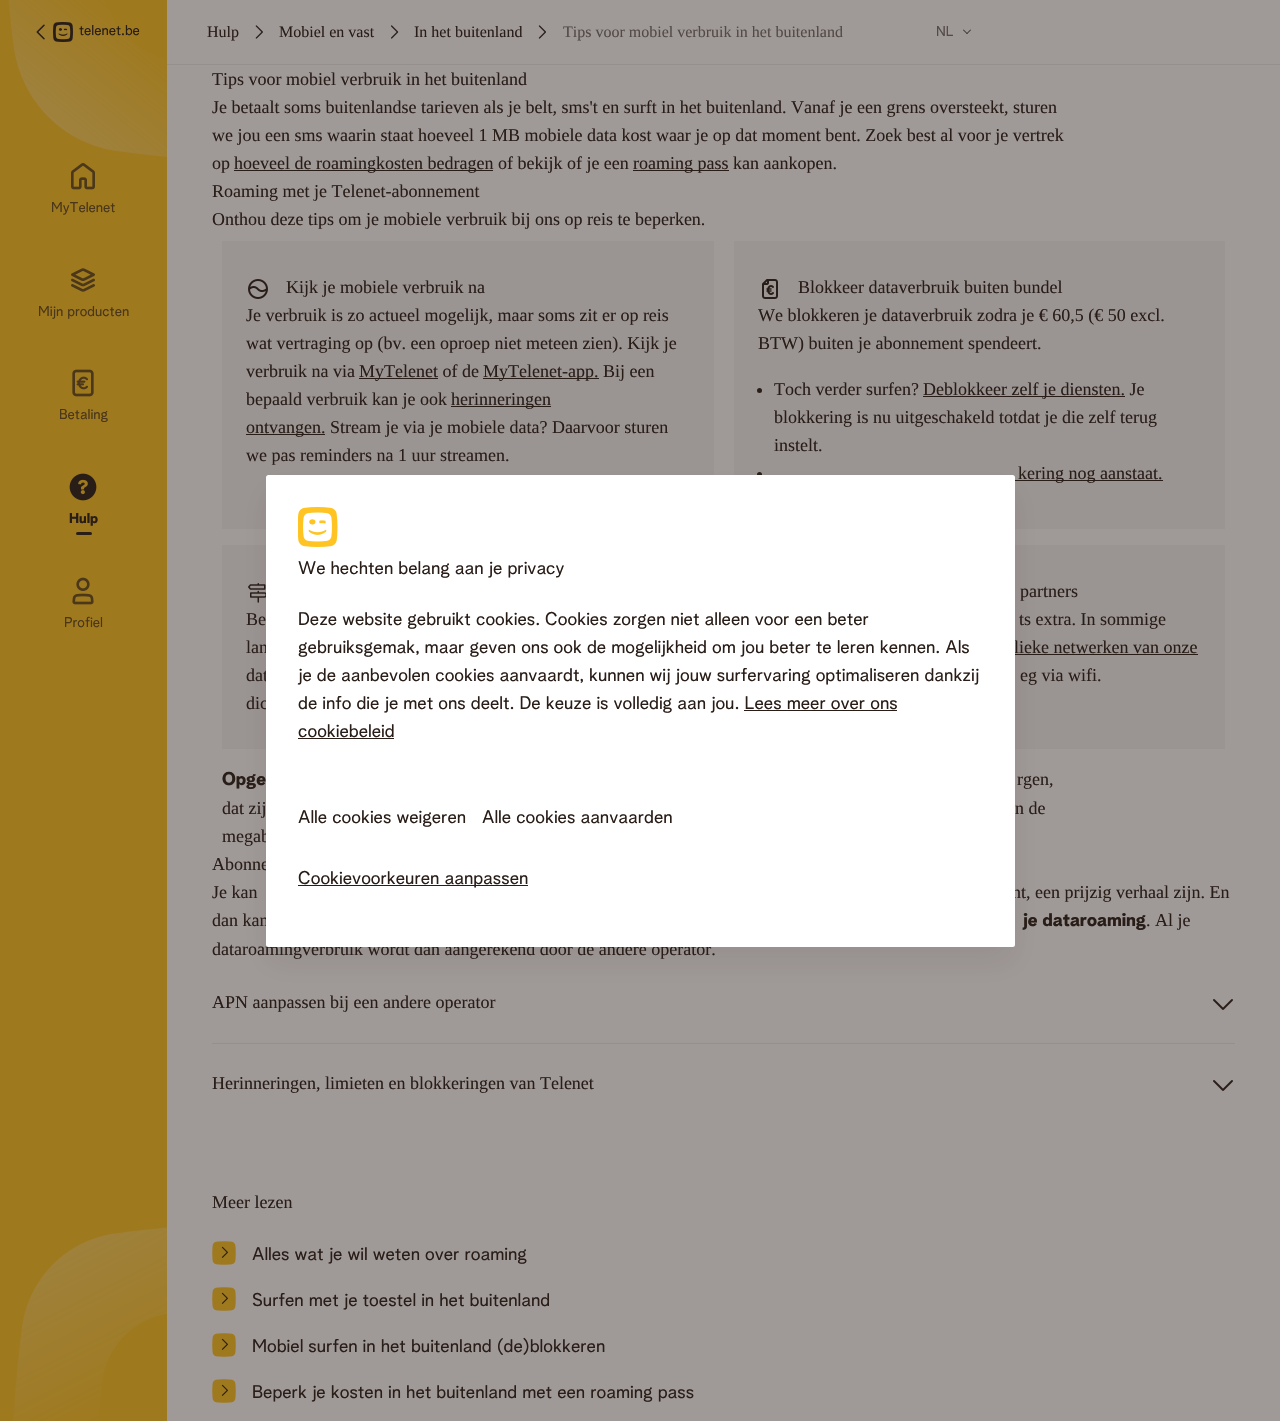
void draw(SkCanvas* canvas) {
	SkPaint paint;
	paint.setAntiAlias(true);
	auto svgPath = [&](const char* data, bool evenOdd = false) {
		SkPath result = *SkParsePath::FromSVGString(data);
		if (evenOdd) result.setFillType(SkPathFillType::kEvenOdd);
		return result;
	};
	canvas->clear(0xff9f9997);
	paint.setColor(0xff9f791d);
	canvas->drawRect(SkRect::MakeXYWH(0, 0, 167, 1421), paint);
	canvas->drawImageRect(SkImages::DeferredFromEncodedData(SkData::MakeFromFileName("img1.png")), SkRect::MakeXYWH(13, 1227, 154, 194), SkSamplingOptions());
	canvas->drawImageRect(SkImages::DeferredFromEncodedData(SkData::MakeFromFileName("img2.png")), SkRect::MakeXYWH(8, 0, 159, 157), SkSamplingOptions());
	canvas->drawImageRect(SkImages::DeferredFromEncodedData(SkData::MakeFromFileName("img3.png")), SkRect::MakeXYWH(36, 24, 9, 16), SkSamplingOptions());
	canvas->drawImageRect(SkImages::DeferredFromEncodedData(SkData::MakeFromFileName("img4.png")), SkRect::MakeXYWH(53, 22, 20, 20), SkSamplingOptions());
	SkFont f1(fontMgr->matchFamilyStyle("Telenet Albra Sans", SkFontStyle::Normal()), 14);
	f1.setSubpixel(true);
	paint.setColor(0xff291d18);
	canvas->drawString("telenet.be", 79, 35, f1, paint);
	canvas->drawImageRect(SkImages::DeferredFromEncodedData(SkData::MakeFromFileName("img5.png")), SkRect::MakeXYWH(71, 163, 24, 27), SkSamplingOptions());
	paint.setColor(0xff4a371a);
	canvas->drawString("MyTelenet", 51, 212, f1, paint);
	canvas->drawImageRect(SkImages::DeferredFromEncodedData(SkData::MakeFromFileName("img6.png")), SkRect::MakeXYWH(71, 268, 24, 24), SkSamplingOptions());
	canvas->drawString("Mijn producten", 38, 316, f1, paint);
	canvas->drawImageRect(SkImages::DeferredFromEncodedData(SkData::MakeFromFileName("img7.png")), SkRect::MakeXYWH(72, 369, 22, 28), SkSamplingOptions());
	canvas->drawString("Betaling", 59, 419, f1, paint);
	canvas->drawImageRect(SkImages::DeferredFromEncodedData(SkData::MakeFromFileName("img8.png")), SkRect::MakeXYWH(69, 473, 28, 28), SkSamplingOptions());
	SkFont f2(fontMgr->matchFamilyStyle("Telenet Albra Sans", SkFontStyle::Bold()), 14);
	f2.setSubpixel(true);
	paint.setColor(0xff291d18);
	canvas->drawString("Hulp", 69, 523, f2, paint);
	canvas->drawRoundRect(SkRect::MakeXYWH(76, 532, 16, 3), 1.5, 1.5, paint);
	canvas->drawImageRect(SkImages::DeferredFromEncodedData(SkData::MakeFromFileName("img9.png")), SkRect::MakeXYWH(72, 577, 22, 28), SkSamplingOptions());
	paint.setColor(0xff4a371a);
	canvas->drawString("Profiel", 64, 627, f1, paint);
	SkFont f3(fontMgr->matchFamilyStyle("Liberation Serif", SkFontStyle::Normal()), 16);
	f3.setSubpixel(true);
	paint.setColor(0xff291d18);
	canvas->drawString("Hulp", 207, 37, f3, paint);
	canvas->drawImageRect(SkImages::DeferredFromEncodedData(SkData::MakeFromFileName("img10.png")), SkRect::MakeXYWH(255, 25, 8, 14), SkSamplingOptions());
	canvas->drawString("Mobiel en vast", 279, 37, f3, paint);
	canvas->drawImageRect(SkImages::DeferredFromEncodedData(SkData::MakeFromFileName("img11.png")), SkRect::MakeXYWH(391, 25, 8, 14), SkSamplingOptions());
	canvas->drawString("In het buitenland", 414, 37, f3, paint);
	canvas->drawImageRect(SkImages::DeferredFromEncodedData(SkData::MakeFromFileName("img12.png")), SkRect::MakeXYWH(538, 25, 8, 14), SkSamplingOptions());
	canvas->save();
	canvas->clipRect(SkRect::MakeXYWH(563, 20, 280, 24));
	paint.setColor(0xff534a46);
	canvas->drawString("Tips voor mobiel verbruik in het buitenland", 563, 37, f3, paint);
	canvas->restore();
	canvas->drawString("NL", 936, 36, f1, paint);
	paint.setColor(0xff291d18);
	canvas->drawPath(svgPath("M970.5 29.5L971 30L967 34L966.5 33.5Z"), paint);
	canvas->drawPath(svgPath("M963.5 29.5L967.5 33.5L967 34L963 30Z"), paint);
	paint.setColor(0xff958f8d);
	canvas->drawRect(SkRect::MakeXYWH(167, 64, 1113, 1), paint);
	SkFont f4(fontMgr->matchFamilyStyle("Liberation Serif", SkFontStyle::Normal()), 18);
	f4.setSubpixel(true);
	paint.setColor(0xff291d18);
	canvas->drawString("Tips voor mobiel verbruik in het buitenland", 212, 85, f4, paint);
	canvas->drawString("Je betaalt soms buitenlandse tarieven als je belt, sms't en surft in het buitenland. Vanaf je een grens oversteekt, sturen", 212, 113, f4, paint);
	canvas->drawString("we jou een sms waarin staat hoeveel 1 MB mobiele data kost waar je op dat moment bent. Zoek best al voor je vertrek", 212, 141, f4, paint);
	canvas->drawString("op", 212, 169, f4, paint);
	canvas->drawRect(SkRect::MakeXYWH(234, 170, 259, 1), paint);
	canvas->drawString("hoeveel de roamingkosten bedragen of bekijk of je een", 234, 169, f4, paint);
	canvas->drawRect(SkRect::MakeXYWH(633, 170, 96, 1), paint);
	canvas->drawString("roaming pass kan aankopen.", 633, 169, f4, paint);
	canvas->drawString("Roaming met je Telenet-abonnement", 212, 197, f4, paint);
	canvas->drawString("Onthou deze tips om je mobiele verbruik bij ons op reis te beperken.", 212, 225, f4, paint);
	paint.setColor(0xff9a9492);
	canvas->drawRect(SkRect::MakeXYWH(222, 241, 492, 288), paint);
	canvas->drawImageRect(SkImages::DeferredFromEncodedData(SkData::MakeFromFileName("img13.png")), SkRect::MakeXYWH(248, 279, 20, 20), SkSamplingOptions());
	paint.setColor(0xff291d18);
	canvas->drawString("Kijk je mobiele verbruik na", 286, 293, f4, paint);
	canvas->drawString("Je verbruik is zo actueel mogelijk, maar soms zit er op reis", 246, 321, f4, paint);
	canvas->drawString("wat vertraging op (bv. een oproep niet meteen zien). Kijk je", 246, 349, f4, paint);
	canvas->drawString("verbruik na via", 246, 377, f4, paint);
	canvas->drawRect(SkRect::MakeXYWH(359, 378, 79, 1), paint);
	canvas->drawString("MyTelenet of de", 359, 377, f4, paint);
	canvas->drawRect(SkRect::MakeXYWH(483, 378, 116, 1), paint);
	canvas->drawString("MyTelenet-app. Bij een", 483, 377, f4, paint);
	canvas->drawString("bepaald verbruik kan je ook", 246, 405, f4, paint);
	canvas->drawRect(SkRect::MakeXYWH(451, 406, 100, 1), paint);
	canvas->drawString("herinneringen", 451, 405, f4, paint);
	canvas->drawRect(SkRect::MakeXYWH(246, 434, 79, 1), paint);
	canvas->drawString("ontvangen. Stream je via je mobiele data? Daarvoor sturen", 246, 433, f4, paint);
	canvas->drawString("we pas reminders na 1 uur streamen.", 246, 461, f4, paint);
	paint.setColor(0xff9a9492);
	canvas->drawRect(SkRect::MakeXYWH(734, 241, 491, 288), paint);
	canvas->drawImageRect(SkImages::DeferredFromEncodedData(SkData::MakeFromFileName("img14.png")), SkRect::MakeXYWH(762, 279, 16, 20), SkSamplingOptions());
	paint.setColor(0xff291d18);
	canvas->drawString("Blokkeer dataverbruik buiten bundel", 798, 293, f4, paint);
	canvas->drawString("We blokkeren je dataverbruik zodra je € 60,5 (€ 50 excl.", 758, 321, f4, paint);
	canvas->drawString("BTW) buiten je abonnement spendeert.", 758, 349, f4, paint);
	canvas->drawCircle(759.5, 390.5, 2.5, paint);
	canvas->drawString("Toch verder surfen?", 774, 395, f4, paint);
	canvas->drawRect(SkRect::MakeXYWH(923, 396, 202, 1), paint);
	canvas->drawString("Deblokkeer zelf je diensten. Je", 923, 395, f4, paint);
	canvas->drawString("blokkering is nu uitgeschakeld totdat je die zelf terug", 774, 423, f4, paint);
	canvas->drawString("instelt.", 774, 451, f4, paint);
	canvas->drawCircle(759.5, 474.5, 2.5, paint);
	canvas->drawRect(SkRect::MakeXYWH(1015, 480, 148, 1), paint);
	canvas->drawString("kering nog aanstaat.", 1018, 479, f4, paint);
	paint.setColor(0xff9a9492);
	canvas->drawRect(SkRect::MakeXYWH(222, 545, 44, 204), paint);
	canvas->drawImageRect(SkImages::DeferredFromEncodedData(SkData::MakeFromFileName("img15.png")), SkRect::MakeXYWH(248, 583, 18, 20), SkSamplingOptions());
	paint.setColor(0xff291d18);
	canvas->drawString("Be", 246, 625, f4, paint);
	canvas->drawString("lan", 246, 653, f4, paint);
	canvas->drawString("dat", 246, 681, f4, paint);
	canvas->drawString("dic", 246, 709, f4, paint);
	paint.setColor(0xff9a9492);
	canvas->drawRect(SkRect::MakeXYWH(1015, 545, 210, 204), paint);
	paint.setColor(0xff291d18);
	canvas->drawString("partners", 1020, 597, f4, paint);
	canvas->drawString("ts extra. In sommige", 1019, 625, f4, paint);
	canvas->drawString("lieke netwerken van onze", 1014, 653, f4, paint);
	canvas->drawRect(SkRect::MakeXYWH(1015, 654, 183, 1), paint);
	canvas->drawString("eg via wifi.", 1020, 681, f4, paint);
	SkFont f5(fontMgr->matchFamilyStyle("Telenet Albra Sans", SkFontStyle::Bold()), 18);
	f5.setSubpixel(true);
	canvas->drawString("Opge", 222, 785, f5, paint);
	canvas->drawString("rgen,", 1017, 785, f4, paint);
	canvas->drawString("dat zij", 222, 814, f4, paint);
	canvas->drawString("n de", 1015, 814, f4, paint);
	canvas->drawString("megab", 222, 842, f4, paint);
	canvas->drawString("Abonne", 212, 870, f4, paint);
	canvas->drawString("Je kan", 212, 898, f4, paint);
	canvas->drawString("nt, een prijzig verhaal zijn. En", 1012, 898, f4, paint);
	canvas->drawString("dan kan", 212, 926, f4, paint);
	canvas->drawString("je dataroaming", 1023, 926, f5, paint);
	canvas->drawString(". Al je", 1146, 926, f4, paint);
	canvas->drawString("dataroamingverbruik wordt dan aangerekend door de andere operator.", 212, 955, f4, paint);
	canvas->drawString("APN aanpassen bij een andere operator", 212, 1008, f4, paint);
	canvas->drawImageRect(SkImages::DeferredFromEncodedData(SkData::MakeFromFileName("img16.png")), SkRect::MakeXYWH(1213, 999, 20, 11), SkSamplingOptions());
	paint.setColor(0xff958f8d);
	canvas->drawRect(SkRect::MakeXYWH(212, 1043, 1023, 1), paint);
	paint.setColor(0xff291d18);
	canvas->drawString("Herinneringen, limieten en blokkeringen van Telenet", 212, 1089, f4, paint);
	canvas->drawImageRect(SkImages::DeferredFromEncodedData(SkData::MakeFromFileName("img16.png")), SkRect::MakeXYWH(1213, 1080, 20, 11), SkSamplingOptions());
	canvas->drawString("Meer lezen", 212, 1208, f4, paint);
	canvas->drawImageRect(SkImages::DeferredFromEncodedData(SkData::MakeFromFileName("img17.png")), SkRect::MakeXYWH(212, 1241, 24, 24), SkSamplingOptions());
	canvas->drawImageRect(SkImages::DeferredFromEncodedData(SkData::MakeFromFileName("img18.png")), SkRect::MakeXYWH(221, 1246, 7, 12), SkSamplingOptions());
	SkFont f6(fontMgr->matchFamilyStyle("Telenet Albra Sans", SkFontStyle::Normal()), 18);
	f6.setSubpixel(true);
	canvas->drawString("Alles wat je wil weten over roaming", 252, 1260, f6, paint);
	canvas->drawImageRect(SkImages::DeferredFromEncodedData(SkData::MakeFromFileName("img17.png")), SkRect::MakeXYWH(212, 1287, 24, 24), SkSamplingOptions());
	canvas->drawImageRect(SkImages::DeferredFromEncodedData(SkData::MakeFromFileName("img18.png")), SkRect::MakeXYWH(221, 1292, 7, 12), SkSamplingOptions());
	canvas->drawString("Surfen met je toestel in het buitenland", 252, 1306, f6, paint);
	canvas->drawImageRect(SkImages::DeferredFromEncodedData(SkData::MakeFromFileName("img17.png")), SkRect::MakeXYWH(212, 1333, 24, 24), SkSamplingOptions());
	canvas->drawImageRect(SkImages::DeferredFromEncodedData(SkData::MakeFromFileName("img18.png")), SkRect::MakeXYWH(221, 1338, 7, 12), SkSamplingOptions());
	canvas->drawString("Mobiel surfen in het buitenland (de)blokkeren", 252, 1352, f6, paint);
	canvas->drawImageRect(SkImages::DeferredFromEncodedData(SkData::MakeFromFileName("img17.png")), SkRect::MakeXYWH(212, 1379, 24, 24), SkSamplingOptions());
	canvas->drawImageRect(SkImages::DeferredFromEncodedData(SkData::MakeFromFileName("img18.png")), SkRect::MakeXYWH(221, 1384, 7, 12), SkSamplingOptions());
	canvas->drawString("Beperk je kosten in het buitenland met een roaming pass", 252, 1398, f6, paint);
	paint.setColor(0x14291d18);
	paint.setMaskFilter(SkMaskFilter::MakeBlur(kNormal_SkBlurStyle, 16));
	canvas->drawRoundRect(SkRect::MakeXYWH(266, 491, 749, 472), 2.5, 2.5, paint);
	paint.setMaskFilter(nullptr);
	paint.setColor(0xffffffff);
	canvas->drawRoundRect(SkRect::MakeXYWH(266, 475, 749, 472), 2.5, 2.5, paint);
	canvas->drawImageRect(SkImages::DeferredFromEncodedData(SkData::MakeFromFileName("img19.png")), SkRect::MakeXYWH(298, 507, 40, 40), SkSamplingOptions());
	paint.setColor(0xff291d18);
	canvas->drawString("We hechten belang aan je privacy", 298, 574, f6, paint);
	canvas->drawString("Deze website gebruikt cookies. Cookies zorgen niet alleen voor een beter", 298, 625, f6, paint);
	canvas->drawString("gebruiksgemak, maar geven ons ook de mogelijkheid om jou beter te leren kennen. Als", 298, 653, f6, paint);
	canvas->drawString("je de aanbevolen cookies aanvaardt, kunnen wij jouw surfervaring optimaliseren dankzij", 298, 681, f6, paint);
	canvas->drawString("de info die je met ons deelt. De keuze is volledig aan jou. Lees meer over ons", 298, 709, f6, paint);
	canvas->drawString("cookiebeleid", 298, 737, f6, paint);
	canvas->drawRect(SkRect::MakeXYWH(744, 710, 153, 1), paint);
	canvas->drawRect(SkRect::MakeXYWH(298, 738, 96, 1), paint);
	canvas->drawString("Alle cookies weigeren", 298, 823, f6, paint);
	canvas->drawString("Alle cookies aanvaarden", 482, 823, f6, paint);
	canvas->drawRect(SkRect::MakeXYWH(298, 885, 230, 1), paint);
	canvas->drawString("Cookievoorkeuren aanpassen", 298, 884, f6, paint);
}
